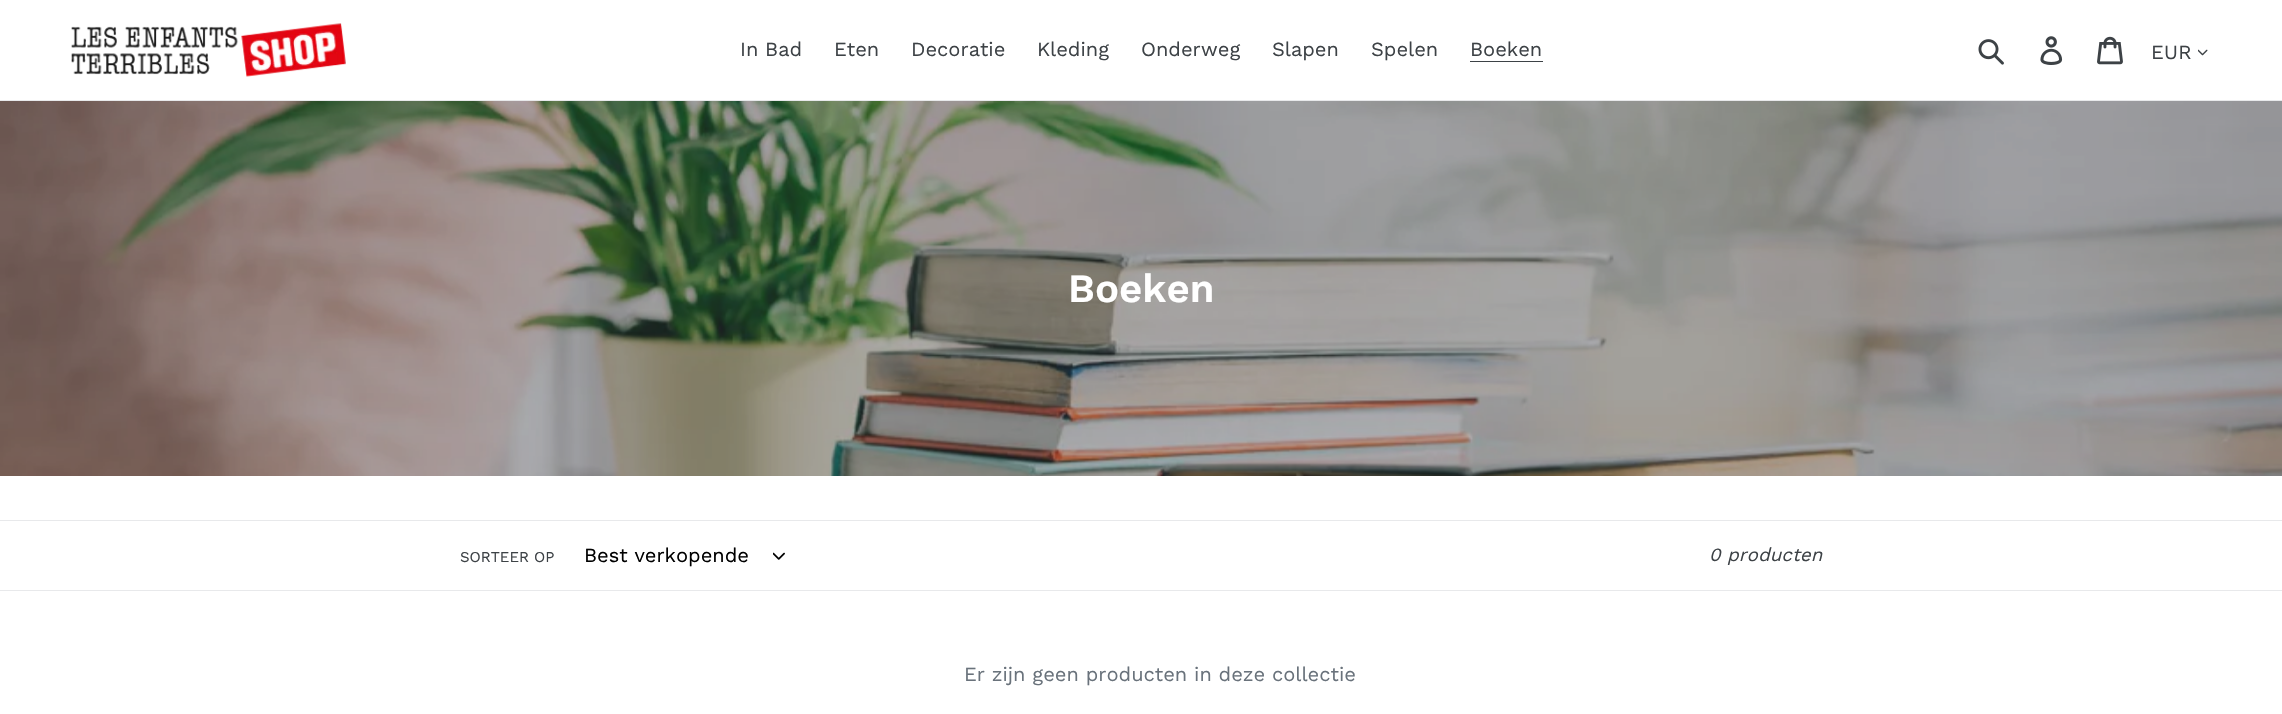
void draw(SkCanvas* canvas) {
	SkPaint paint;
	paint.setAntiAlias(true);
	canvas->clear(0xffffffff);
	paint.setColor(0xffe8e9eb);
	canvas->drawRect(SkRect::MakeXYWH(0, 100, 2282, 1), paint);
	canvas->drawImageRect(SkImages::DeferredFromEncodedData(SkData::MakeFromFileName("img1.png")), SkRect::MakeXYWH(71, 23, 275, 54), SkSamplingOptions());
	SkFont f1(fontMgr->matchFamilyStyle("Work Sans", SkFontStyle::Normal()), 20);
	f1.setSubpixel(true);
	paint.setColor(0xff3d4246);
	canvas->drawString("In Bad", 740, 56, f1, paint);
	canvas->drawString("Eten", 834, 56, f1, paint);
	canvas->drawString("Decoratie", 911, 56, f1, paint);
	canvas->drawString("Kleding", 1037, 56, f1, paint);
	canvas->drawString("Onderweg", 1141, 56, f1, paint);
	canvas->drawString("Slapen", 1272, 56, f1, paint);
	canvas->drawString("Spelen", 1371, 56, f1, paint);
	canvas->drawString("Boeken", 1470, 56, f1, paint);
	canvas->drawRect(SkRect::MakeXYWH(1470, 61, 73, 1), paint);
	canvas->drawImageRect(SkImages::DeferredFromEncodedData(SkData::MakeFromFileName("img2.png")), SkRect::MakeXYWH(1978, 39, 26, 26), SkSamplingOptions());
	canvas->drawImageRect(SkImages::DeferredFromEncodedData(SkData::MakeFromFileName("img3.png")), SkRect::MakeXYWH(2040, 36, 23, 29), SkSamplingOptions());
	canvas->drawImageRect(SkImages::DeferredFromEncodedData(SkData::MakeFromFileName("img4.png")), SkRect::MakeXYWH(2097, 36, 26, 29), SkSamplingOptions());
	canvas->drawString("EUR", 2151, 59, f1, paint);
	canvas->drawImageRect(SkImages::DeferredFromEncodedData(SkData::MakeFromFileName("img5.png")), SkRect::MakeXYWH(2198, 49, 10, 7), SkSamplingOptions());
	canvas->drawImageRect(SkImages::DeferredFromEncodedData(SkData::MakeFromFileName("img6.png")), SkRect::MakeXYWH(0, 101, 2282, 375), SkSamplingOptions());
	SkFont f2(fontMgr->matchFamilyStyle("Work Sans", SkFontStyle(600, SkFontStyle::kNormal_Width, SkFontStyle::kUpright_Slant)), 40);
	f2.setSubpixel(true);
	paint.setColor(0xffffffff);
	canvas->drawString("Boeken", 1068, 302, f2, paint);
	paint.setColor(0xffe8e9eb);
	canvas->drawRect(SkRect::MakeXYWH(0, 520, 2282, 1), paint);
	canvas->drawRect(SkRect::MakeXYWH(0, 590, 2282, 1), paint);
	SkFont f3(fontMgr->matchFamilyStyle("Work Sans", SkFontStyle::Normal()), 15);
	f3.setSubpixel(true);
	paint.setColor(0xff3d4246);
	canvas->drawString("SORTEER OP", 460, 562, f3, paint);
	paint.setColor(0xff000000);
	canvas->drawString("Best verkopende", 584, 562, f1, paint);
	canvas->drawImageRect(SkImages::DeferredFromEncodedData(SkData::MakeFromFileName("img7.png")), SkRect::MakeXYWH(773, 552, 12, 8), SkSamplingOptions());
	SkFont f4(fontMgr->matchFamilyStyle("Work Sans", SkFontStyle::Italic()), 18.75);
	f4.setSubpixel(true);
	paint.setColor(0xff3d4246);
	canvas->drawString("0 producten", 1709, 561, f4, paint);
	paint.setColor(0xff69727b);
	canvas->drawString("Er zijn geen producten in deze collectie", 964, 681, f1, paint);
}
